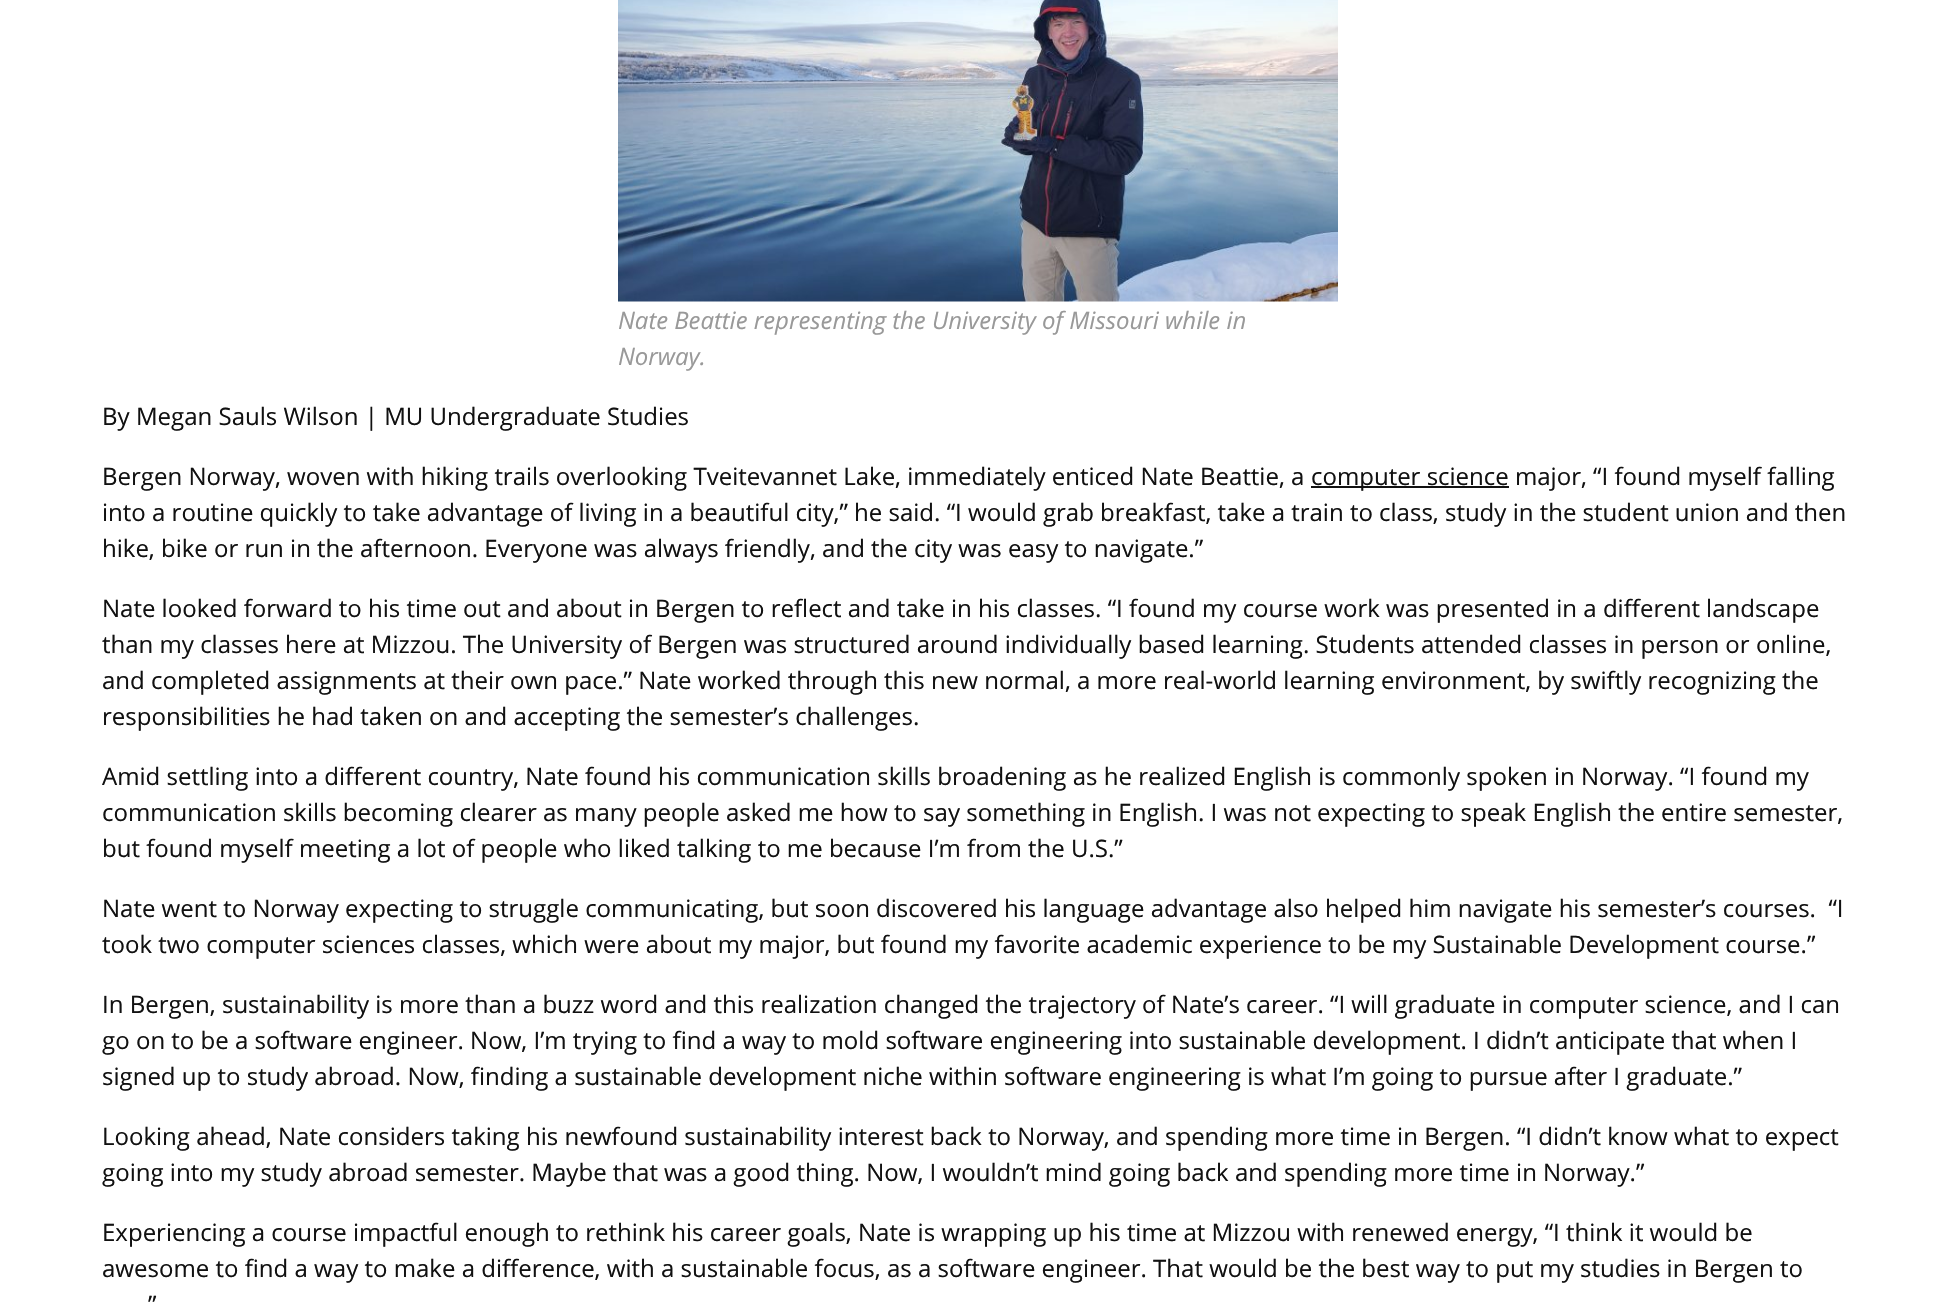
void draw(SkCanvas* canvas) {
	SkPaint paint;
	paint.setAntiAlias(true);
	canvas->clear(0xffffffff);
	canvas->drawImageRect(SkImages::DeferredFromEncodedData(SkData::MakeFromFileName("img1.png")), SkRect::MakeXYWH(618, 0, 720, 302), SkSamplingOptions());
	SkFont f1(fontMgr->matchFamilyStyle("Open Sans", SkFontStyle::Italic()), 24);
	f1.setSubpixel(true);
	paint.setColor(0xff999999);
	canvas->drawString("Nate Beattie representing the University of Missouri while in", 618, 329, f1, paint);
	canvas->drawString("Norway.", 618, 365, f1, paint);
	SkFont f2(fontMgr->matchFamilyStyle("Open Sans", SkFontStyle::Normal()), 24);
	f2.setSubpixel(true);
	paint.setColor(0xff111111);
	canvas->drawString("By Megan Sauls Wilson | MU Undergraduate Studies", 102, 425, f2, paint);
	canvas->drawString("Bergen Norway, woven with hiking trails overlooking Tveitevannet Lake, immediately enticed Nate Beattie, a", 102, 485, f2, paint);
	canvas->drawRect(SkRect::MakeXYWH(1311, 486, 198, 2), paint);
	canvas->drawString("computer science major, “I found myself falling", 1311, 485, f2, paint);
	canvas->drawString("into a routine quickly to take advantage of living in a beautiful city,” he said. “I would grab breakfast, take a train to class, study in the student union and then", 102, 521, f2, paint);
	canvas->drawString("hike, bike or run in the afternoon. Everyone was always friendly, and the city was easy to navigate.”", 102, 557, f2, paint);
	canvas->drawString("Nate looked forward to his time out and about in Bergen to reflect and take in his classes. “I found my course work was presented in a different landscape", 102, 617, f2, paint);
	canvas->drawString("than my classes here at Mizzou. The University of Bergen was structured around individually based learning. Students attended classes in person or online,", 102, 653, f2, paint);
	canvas->drawString("and completed assignments at their own pace.” Nate worked through this new normal, a more real-world learning environment, by swiftly recognizing the", 102, 689, f2, paint);
	canvas->drawString("responsibilities he had taken on and accepting the semester’s challenges.", 102, 725, f2, paint);
	canvas->drawString("Amid settling into a different country, Nate found his communication skills broadening as he realized English is commonly spoken in Norway. “I found my", 102, 785, f2, paint);
	canvas->drawString("communication skills becoming clearer as many people asked me how to say something in English. I was not expecting to speak English the entire semester,", 102, 821, f2, paint);
	canvas->drawString("but found myself meeting a lot of people who liked talking to me because I’m from the U.S.”", 102, 857, f2, paint);
	canvas->drawString("Nate went to Norway expecting to struggle communicating, but soon discovered his language advantage also helped him navigate his semester’s courses.  “I", 102, 917, f2, paint);
	canvas->drawString("took two computer sciences classes, which were about my major, but found my favorite academic experience to be my Sustainable Development course.”", 102, 953, f2, paint);
	canvas->drawString("In Bergen, sustainability is more than a buzz word and this realization changed the trajectory of Nate’s career. “I will graduate in computer science, and I can", 102, 1013, f2, paint);
	canvas->drawString("go on to be a software engineer. Now, I’m trying to find a way to mold software engineering into sustainable development. I didn’t anticipate that when I", 102, 1049, f2, paint);
	canvas->drawString("signed up to study abroad. Now, finding a sustainable development niche within software engineering is what I’m going to pursue after I graduate.”", 102, 1085, f2, paint);
	canvas->drawString("Looking ahead, Nate considers taking his newfound sustainability interest back to Norway, and spending more time in Bergen. “I didn’t know what to expect", 102, 1145, f2, paint);
	canvas->drawString("going into my study abroad semester. Maybe that was a good thing. Now, I wouldn’t mind going back and spending more time in Norway.”", 102, 1181, f2, paint);
	canvas->drawString("Experiencing a course impactful enough to rethink his career goals, Nate is wrapping up his time at Mizzou with renewed energy, “I think it would be", 102, 1241, f2, paint);
	canvas->drawString("awesome to find a way to make a difference, with a sustainable focus, as a software engineer. That would be the best way to put my studies in Bergen to", 102, 1277, f2, paint);
	canvas->drawString("”", 148, 1313, f2, paint);
}
